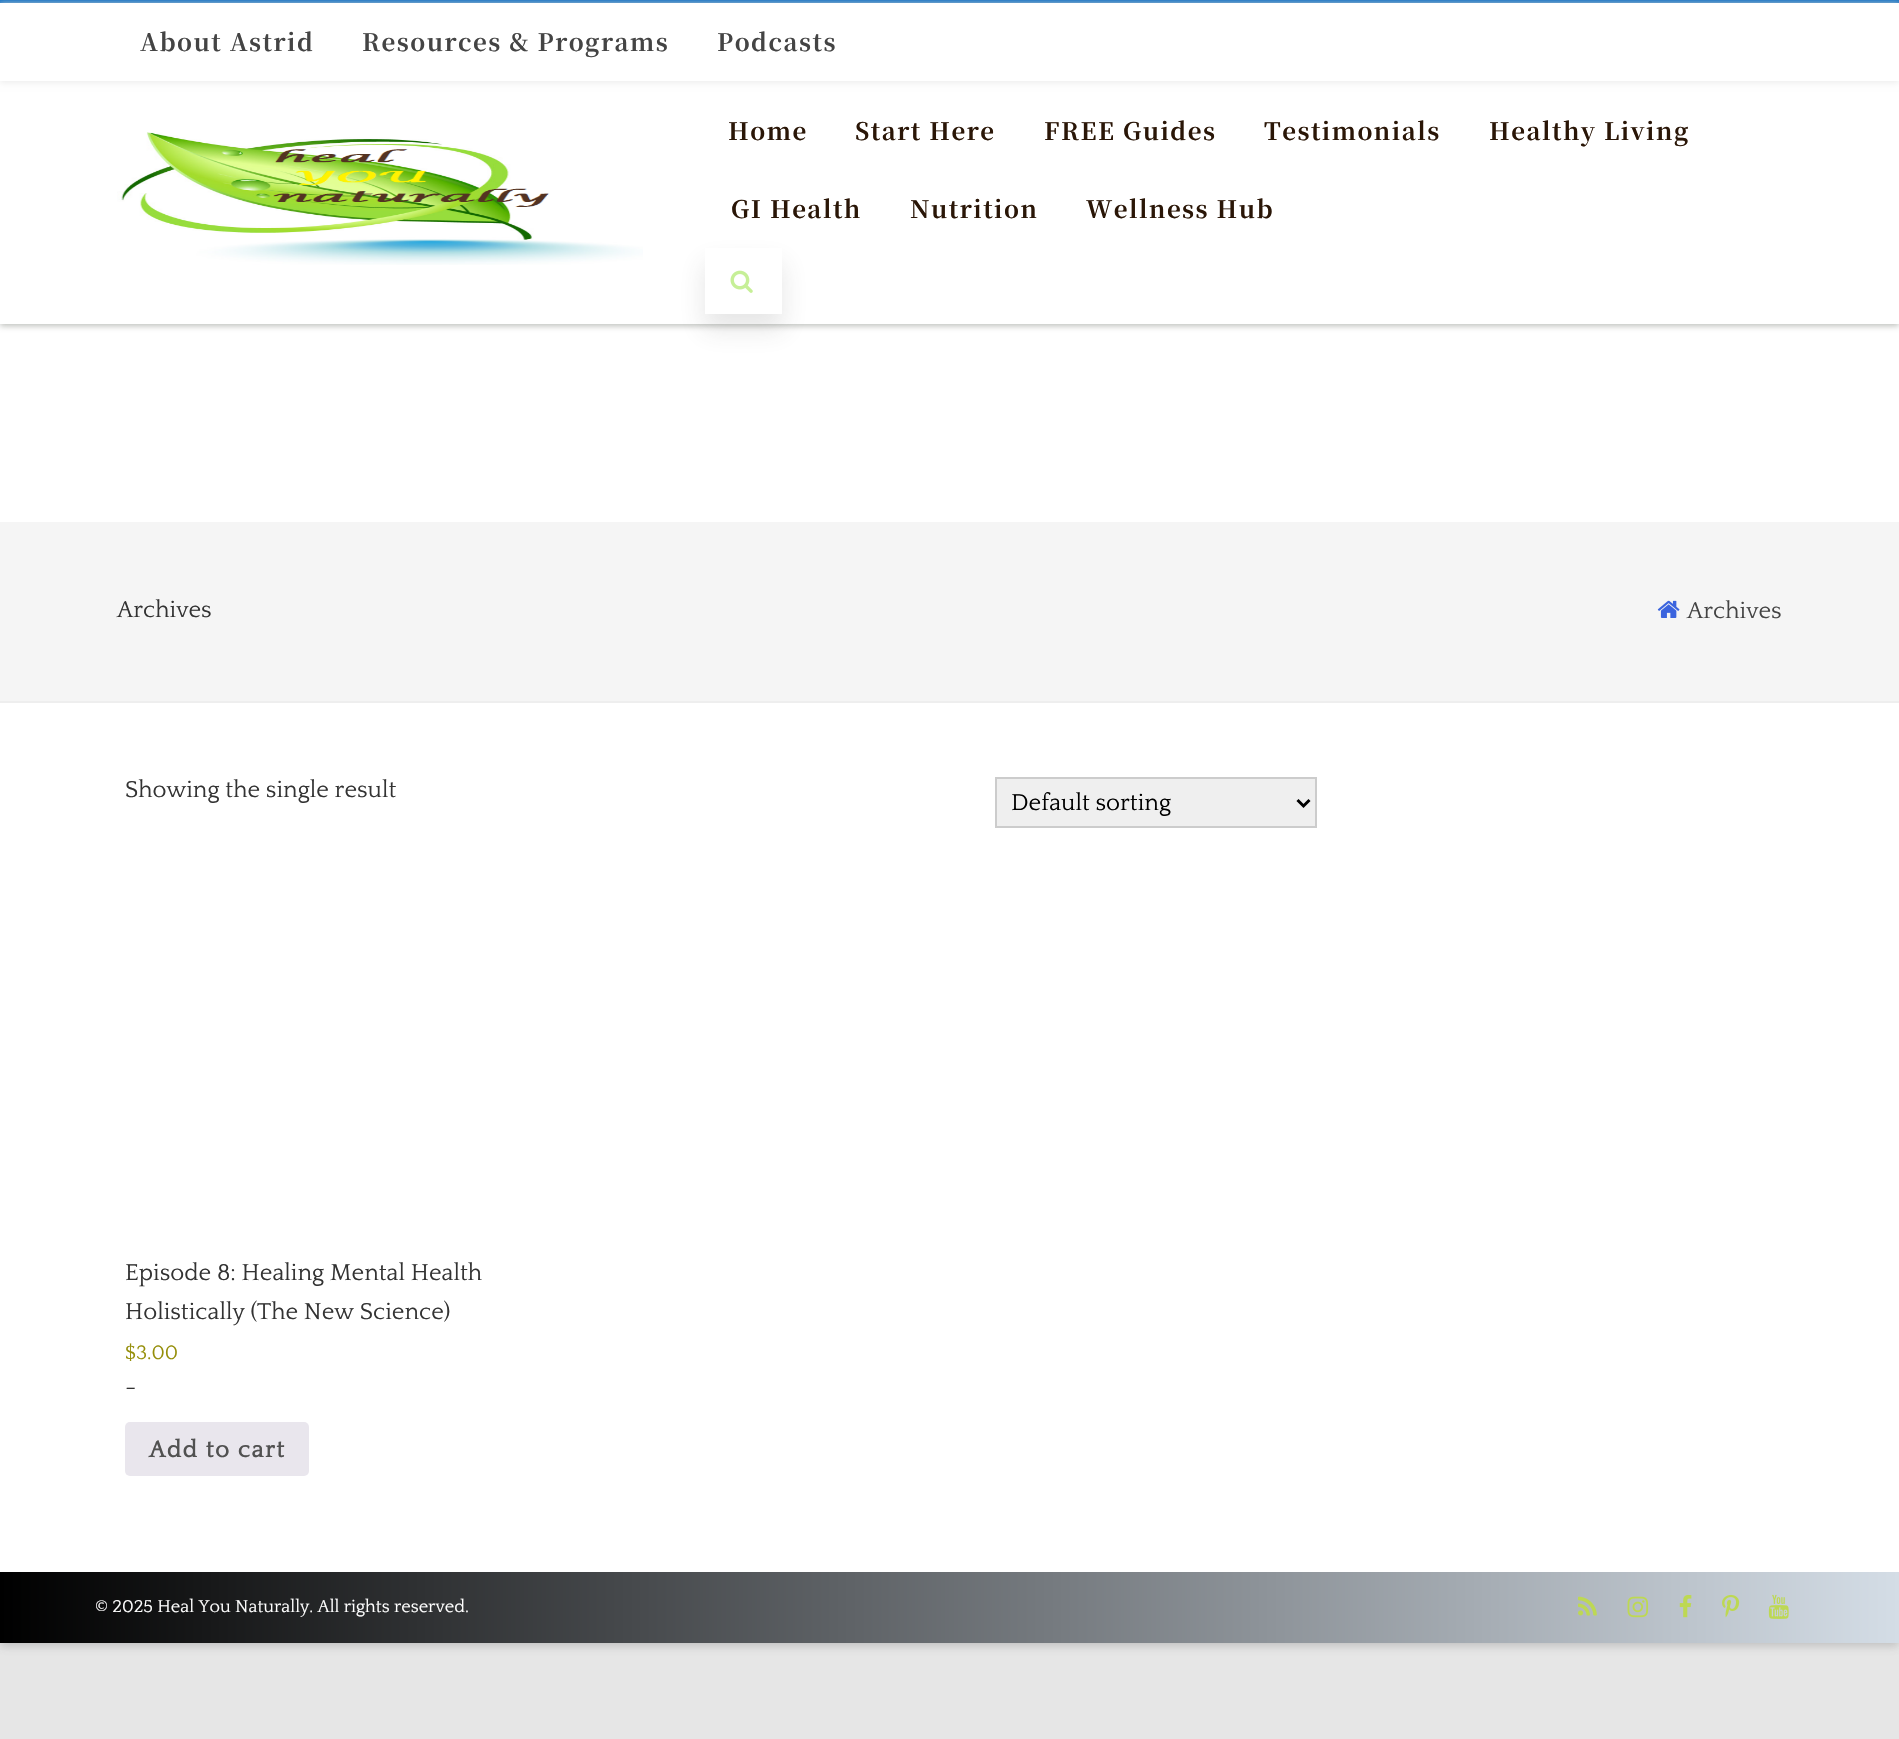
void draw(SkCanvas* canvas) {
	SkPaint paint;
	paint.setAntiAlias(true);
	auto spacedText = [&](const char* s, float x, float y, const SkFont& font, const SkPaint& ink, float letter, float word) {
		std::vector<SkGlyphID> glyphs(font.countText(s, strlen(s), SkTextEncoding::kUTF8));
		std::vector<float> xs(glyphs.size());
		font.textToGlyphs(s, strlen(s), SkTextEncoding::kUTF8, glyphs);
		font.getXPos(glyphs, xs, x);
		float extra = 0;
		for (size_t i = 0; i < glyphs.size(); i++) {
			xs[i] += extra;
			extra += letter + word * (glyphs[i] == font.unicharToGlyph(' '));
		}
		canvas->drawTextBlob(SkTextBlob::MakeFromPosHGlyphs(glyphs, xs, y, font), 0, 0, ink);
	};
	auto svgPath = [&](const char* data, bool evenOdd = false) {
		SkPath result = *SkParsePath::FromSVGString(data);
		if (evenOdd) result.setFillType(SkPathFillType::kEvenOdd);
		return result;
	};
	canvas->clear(0xffe6e6e6);
	paint.setColor(0x4d646464);
	paint.setMaskFilter(SkMaskFilter::MakeBlur(kNormal_SkBlurStyle, 4.5));
	canvas->drawRect(SkRect::MakeXYWH(0, 3, 1899, 1643), paint);
	paint.setMaskFilter(nullptr);
	paint.setColor(0xffffffff);
	canvas->drawRect(SkRect::MakeXYWH(0, 3, 1899, 1569), paint);
	paint.setColor(0xff1f78c6);
	canvas->drawRect(SkRect::MakeXYWH(0, 0, 1899, 3), paint);
	canvas->save();
	canvas->clipPath(svgPath("M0 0H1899V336H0ZM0 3H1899V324H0Z", true), true);
	paint.setColor(0xbfa7a9a4);
	paint.setMaskFilter(SkMaskFilter::MakeBlur(kNormal_SkBlurStyle, 3));
	canvas->drawRect(SkRect::MakeXYWH(0, 5, 1899, 321), paint);
	paint.setMaskFilter(nullptr);
	canvas->restore();
	canvas->save();
	canvas->clipPath(svgPath("M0 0H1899V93H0ZM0 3H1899V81H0Z", true), true);
	paint.setColor(0xffeeeeee);
	paint.setMaskFilter(SkMaskFilter::MakeBlur(kNormal_SkBlurStyle, 3));
	canvas->drawRect(SkRect::MakeXYWH(0, 5, 1899, 78), paint);
	paint.setMaskFilter(nullptr);
	canvas->restore();
	SkFont f1(fontMgr->matchFamilyStyle("Noto Serif JP", SkFontStyle::Bold()), 24);
	f1.setSubpixel(true);
	paint.setColor(0xff444444);
	spacedText("About Astrid", 140, 51, f1, paint, 1.5, 0);
	spacedText("Resources & Programs", 362, 51, f1, paint, 1.5, 0);
	spacedText("Podcasts", 717, 51, f1, paint, 1.5, 0);
	canvas->drawImageRect(SkImages::DeferredFromEncodedData(SkData::MakeFromFileName("img1.png")), SkRect::MakeXYWH(117, 132, 526, 133), SkSamplingOptions());
	paint.setColor(0xff2a1607);
	spacedText("Home", 728, 140, f1, paint, 1.5, 0);
	spacedText("Start Here", 855, 140, f1, paint, 1.5, 0);
	spacedText("FREE Guides", 1044, 140, f1, paint, 1.5, 0);
	spacedText("Testimonials", 1264, 140, f1, paint, 1.5, 0);
	spacedText("Healthy Living", 1489, 140, f1, paint, 1.5, 0);
	spacedText("GI Health", 731, 218, f1, paint, 1.5, 0);
	spacedText("Nutrition", 910, 218, f1, paint, 1.5, 0);
	spacedText("Wellness Hub", 1086, 218, f1, paint, 1.5, 0);
	canvas->save();
	canvas->clipPath(svgPath("M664 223H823V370H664ZM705 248H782V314H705Z", true), true);
	paint.setColor(0x21404040);
	paint.setMaskFilter(SkMaskFilter::MakeBlur(kNormal_SkBlurStyle, 13));
	canvas->drawRect(SkRect::MakeXYWH(704, 263, 79, 67), paint);
	paint.setMaskFilter(nullptr);
	canvas->restore();
	canvas->drawImageRect(SkImages::DeferredFromEncodedData(SkData::MakeFromFileName("img2.png")), SkRect::MakeXYWH(730, 270, 23, 23), SkSamplingOptions());
	paint.setColor(0xfff5f5f5);
	canvas->drawRect(SkRect::MakeXYWH(0, 522, 1899, 179), paint);
	paint.setColor(0xffeeeeee);
	canvas->drawRect(SkRect::MakeXYWH(0, 701, 1899, 2), paint);
	SkFont f2(fontMgr->matchFamilyStyle("Quattrocento", SkFontStyle::Normal()), 24);
	f2.setSubpixel(true);
	paint.setColor(0xff333333);
	canvas->drawString("Archives", 117, 617, f2, paint);
	canvas->drawImageRect(SkImages::DeferredFromEncodedData(SkData::MakeFromFileName("img3.png")), SkRect::MakeXYWH(1657, 600, 23, 18), SkSamplingOptions());
	paint.setColor(0xff444444);
	canvas->drawString("Archives", 1687, 618, f2, paint);
	paint.setColor(0xff333333);
	canvas->drawString("Showing the single result", 125, 797, f2, paint);
	paint.setColor(0xffefefef);
	canvas->drawRect(SkRect::MakeXYWH(996, 778, 320, 49), paint);
	paint.setStroke(true);
	paint.setStrokeWidth(2);
	paint.setColor(0xffcccccc);
	canvas->drawRect(SkRect::MakeXYWH(996, 778, 320, 49), paint);
	paint.setStrokeWidth(3);
	paint.setColor(0xff000000);
	canvas->drawPath(svgPath("M1297.5 800L1303.5 806L1309.5 800"), paint);
	paint.setStroke(false);
	canvas->drawString("Default sorting", 1011, 810, f2, paint);
	paint.setColor(0xff333333);
	canvas->drawString("Episode 8: Healing Mental Health", 125, 1280, f2, paint);
	canvas->drawString("Holistically (The New Science)", 125, 1319, f2, paint);
	SkFont f3(fontMgr->matchFamilyStyle("Quattrocento", SkFontStyle::Normal()), 20.5);
	f3.setSubpixel(true);
	paint.setColor(0xff958e09);
	canvas->drawString("$3.00", 125, 1359, f3, paint);
	paint.setColor(0xff333333);
	canvas->drawString("-", 125, 1394, f2, paint);
	paint.setColor(0xffe9e6ed);
	canvas->drawRoundRect(SkRect::MakeXYWH(125, 1422, 184, 54), 5, 5, paint);
	SkFont f4(fontMgr->matchFamilyStyle("Quattrocento", SkFontStyle::Bold()), 24);
	f4.setSubpixel(true);
	paint.setColor(0xff515151);
	spacedText("Add to cart", 149, 1457, f4, paint, 1.5, 0);
	{
		const SkColor colors[] = {0xff000000, 0xffd4dde6};
		const float stops[] = {0, 1};
		const SkPoint ends[] = {{0, 1607}, {1899, 1607}};
		paint.setShader(SkGradientShader::MakeLinear(ends, colors, stops, 2, SkTileMode::kClamp));
		paint.setAlpha(255);
	}
	canvas->drawRect(SkRect::MakeXYWH(0, 1572, 1899, 71), paint);
	SkFont f5(fontMgr->matchFamilyStyle("Quattrocento", SkFontStyle::Normal()), 18);
	f5.setSubpixel(true);
	paint.setShader(nullptr);
	paint.setColor(0xffffffff);
	canvas->drawString("© 2025 Heal You Naturally. All rights reserved.", 95, 1612, f5, paint);
	canvas->drawImageRect(SkImages::DeferredFromEncodedData(SkData::MakeFromFileName("img4.png")), SkRect::MakeXYWH(1578, 1596, 19, 20), SkSamplingOptions());
	canvas->drawImageRect(SkImages::DeferredFromEncodedData(SkData::MakeFromFileName("img5.png")), SkRect::MakeXYWH(1627, 1596, 22, 22), SkSamplingOptions());
	canvas->drawImageRect(SkImages::DeferredFromEncodedData(SkData::MakeFromFileName("img6.png")), SkRect::MakeXYWH(1679, 1594, 13, 24), SkSamplingOptions());
	canvas->drawImageRect(SkImages::DeferredFromEncodedData(SkData::MakeFromFileName("img7.png")), SkRect::MakeXYWH(1722, 1594, 18, 24), SkSamplingOptions());
	canvas->drawImageRect(SkImages::DeferredFromEncodedData(SkData::MakeFromFileName("img8.png")), SkRect::MakeXYWH(1768, 1594, 21, 25), SkSamplingOptions());
}
